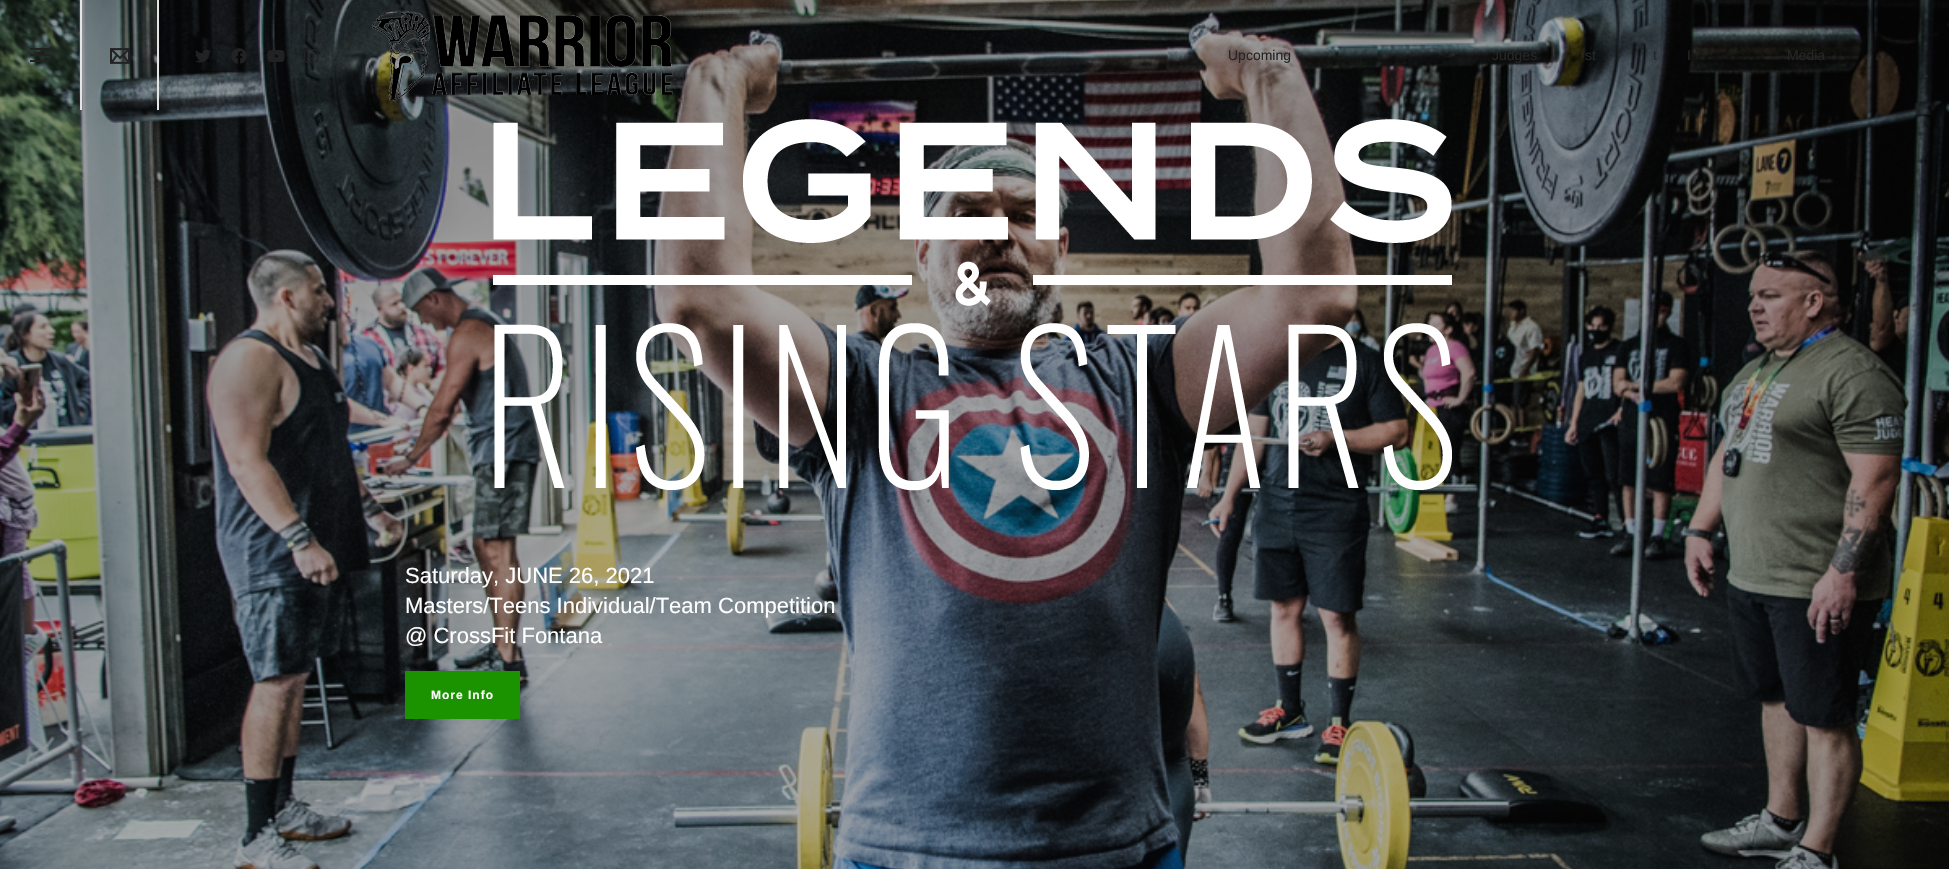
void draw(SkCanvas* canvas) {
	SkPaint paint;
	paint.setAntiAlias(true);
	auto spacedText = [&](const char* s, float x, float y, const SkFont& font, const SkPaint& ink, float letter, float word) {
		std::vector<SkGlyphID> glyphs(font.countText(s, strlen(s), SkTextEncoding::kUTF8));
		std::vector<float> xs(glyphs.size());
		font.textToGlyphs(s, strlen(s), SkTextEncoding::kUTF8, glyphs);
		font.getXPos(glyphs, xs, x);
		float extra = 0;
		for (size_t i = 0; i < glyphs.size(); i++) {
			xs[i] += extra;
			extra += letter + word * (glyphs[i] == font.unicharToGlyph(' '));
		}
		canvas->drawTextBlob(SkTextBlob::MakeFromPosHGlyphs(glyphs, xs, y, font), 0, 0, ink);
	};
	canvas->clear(0xffffffff);
	canvas->drawImageRect(SkImages::DeferredFromEncodedData(SkData::MakeFromFileName("img7.png")), SkRect::MakeXYWH(0, 0, 1949, 869), SkSamplingOptions());
	paint.setColor(0xffe4e4e4);
	canvas->drawRect(SkRect::MakeXYWH(80, 0, 2, 110), paint);
	paint.setColor(0xff222222);
	canvas->drawRect(SkRect::MakeXYWH(30, 54, 20, 2), paint);
	canvas->drawRect(SkRect::MakeXYWH(30, 48, 20, 2), paint);
	canvas->drawRect(SkRect::MakeXYWH(30, 60, 20, 2), paint);
	paint.setColor(0xffe4e4e4);
	canvas->drawRect(SkRect::MakeXYWH(157, 0, 2, 110), paint);
	canvas->drawImageRect(SkImages::DeferredFromEncodedData(SkData::MakeFromFileName("img1.png")), SkRect::MakeXYWH(110, 48, 20, 16), SkSamplingOptions());
	canvas->drawImageRect(SkImages::DeferredFromEncodedData(SkData::MakeFromFileName("img2.png")), SkRect::MakeXYWH(195, 49, 16, 14), SkSamplingOptions());
	canvas->drawImageRect(SkImages::DeferredFromEncodedData(SkData::MakeFromFileName("img3.png")), SkRect::MakeXYWH(231, 48, 16, 16), SkSamplingOptions());
	canvas->drawImageRect(SkImages::DeferredFromEncodedData(SkData::MakeFromFileName("img4.png")), SkRect::MakeXYWH(267, 50, 18, 12), SkSamplingOptions());
	canvas->drawImageRect(SkImages::DeferredFromEncodedData(SkData::MakeFromFileName("img5.png")), SkRect::MakeXYWH(304, 49, 14, 14), SkSamplingOptions());
	canvas->drawImageRect(SkImages::DeferredFromEncodedData(SkData::MakeFromFileName("img6.png")), SkRect::MakeXYWH(371, 10, 305, 92), SkSamplingOptions());
	SkFont f1(fontMgr->matchFamilyStyle("Liberation Sans", SkFontStyle::Normal()), 14);
	f1.setSubpixel(true);
	paint.setColor(0xff252525);
	canvas->drawString("Upcoming", 1228, 60, f1, paint);
	canvas->drawString("Judges", 1492, 60, f1, paint);
	canvas->drawString("st", 1585, 60, f1, paint);
	canvas->drawString("t", 1653, 60, f1, paint);
	canvas->drawString("I", 1687, 60, f1, paint);
	canvas->drawString("Media", 1787, 60, f1, paint);
	canvas->drawImageRect(SkImages::DeferredFromEncodedData(SkData::MakeFromFileName("img8.png")), SkRect::MakeXYWH(493, 119, 959, 372), SkSamplingOptions());
	SkFont f2(fontMgr->matchFamilyStyle("Liberation Sans", SkFontStyle::Normal()), 22);
	f2.setSubpixel(true);
	paint.setColor(0xffffffff);
	canvas->drawString("Saturday, JUNE 26, 2021", 405, 583, f2, paint);
	canvas->drawString("Masters/Teens Individual/Team Competition", 405, 613, f2, paint);
	canvas->drawString("@ CrossFit Fontana", 405, 643, f2, paint);
	paint.setColor(0xff1b9300);
	canvas->drawRect(SkRect::MakeXYWH(405, 671, 115, 48), paint);
	SkFont f3(fontMgr->matchFamilyStyle("Liberation Sans", SkFontStyle::Bold()), 12);
	f3.setSubpixel(true);
	paint.setColor(0xffffffff);
	spacedText("More Info", 431, 699, f3, paint, 1, 0);
}
